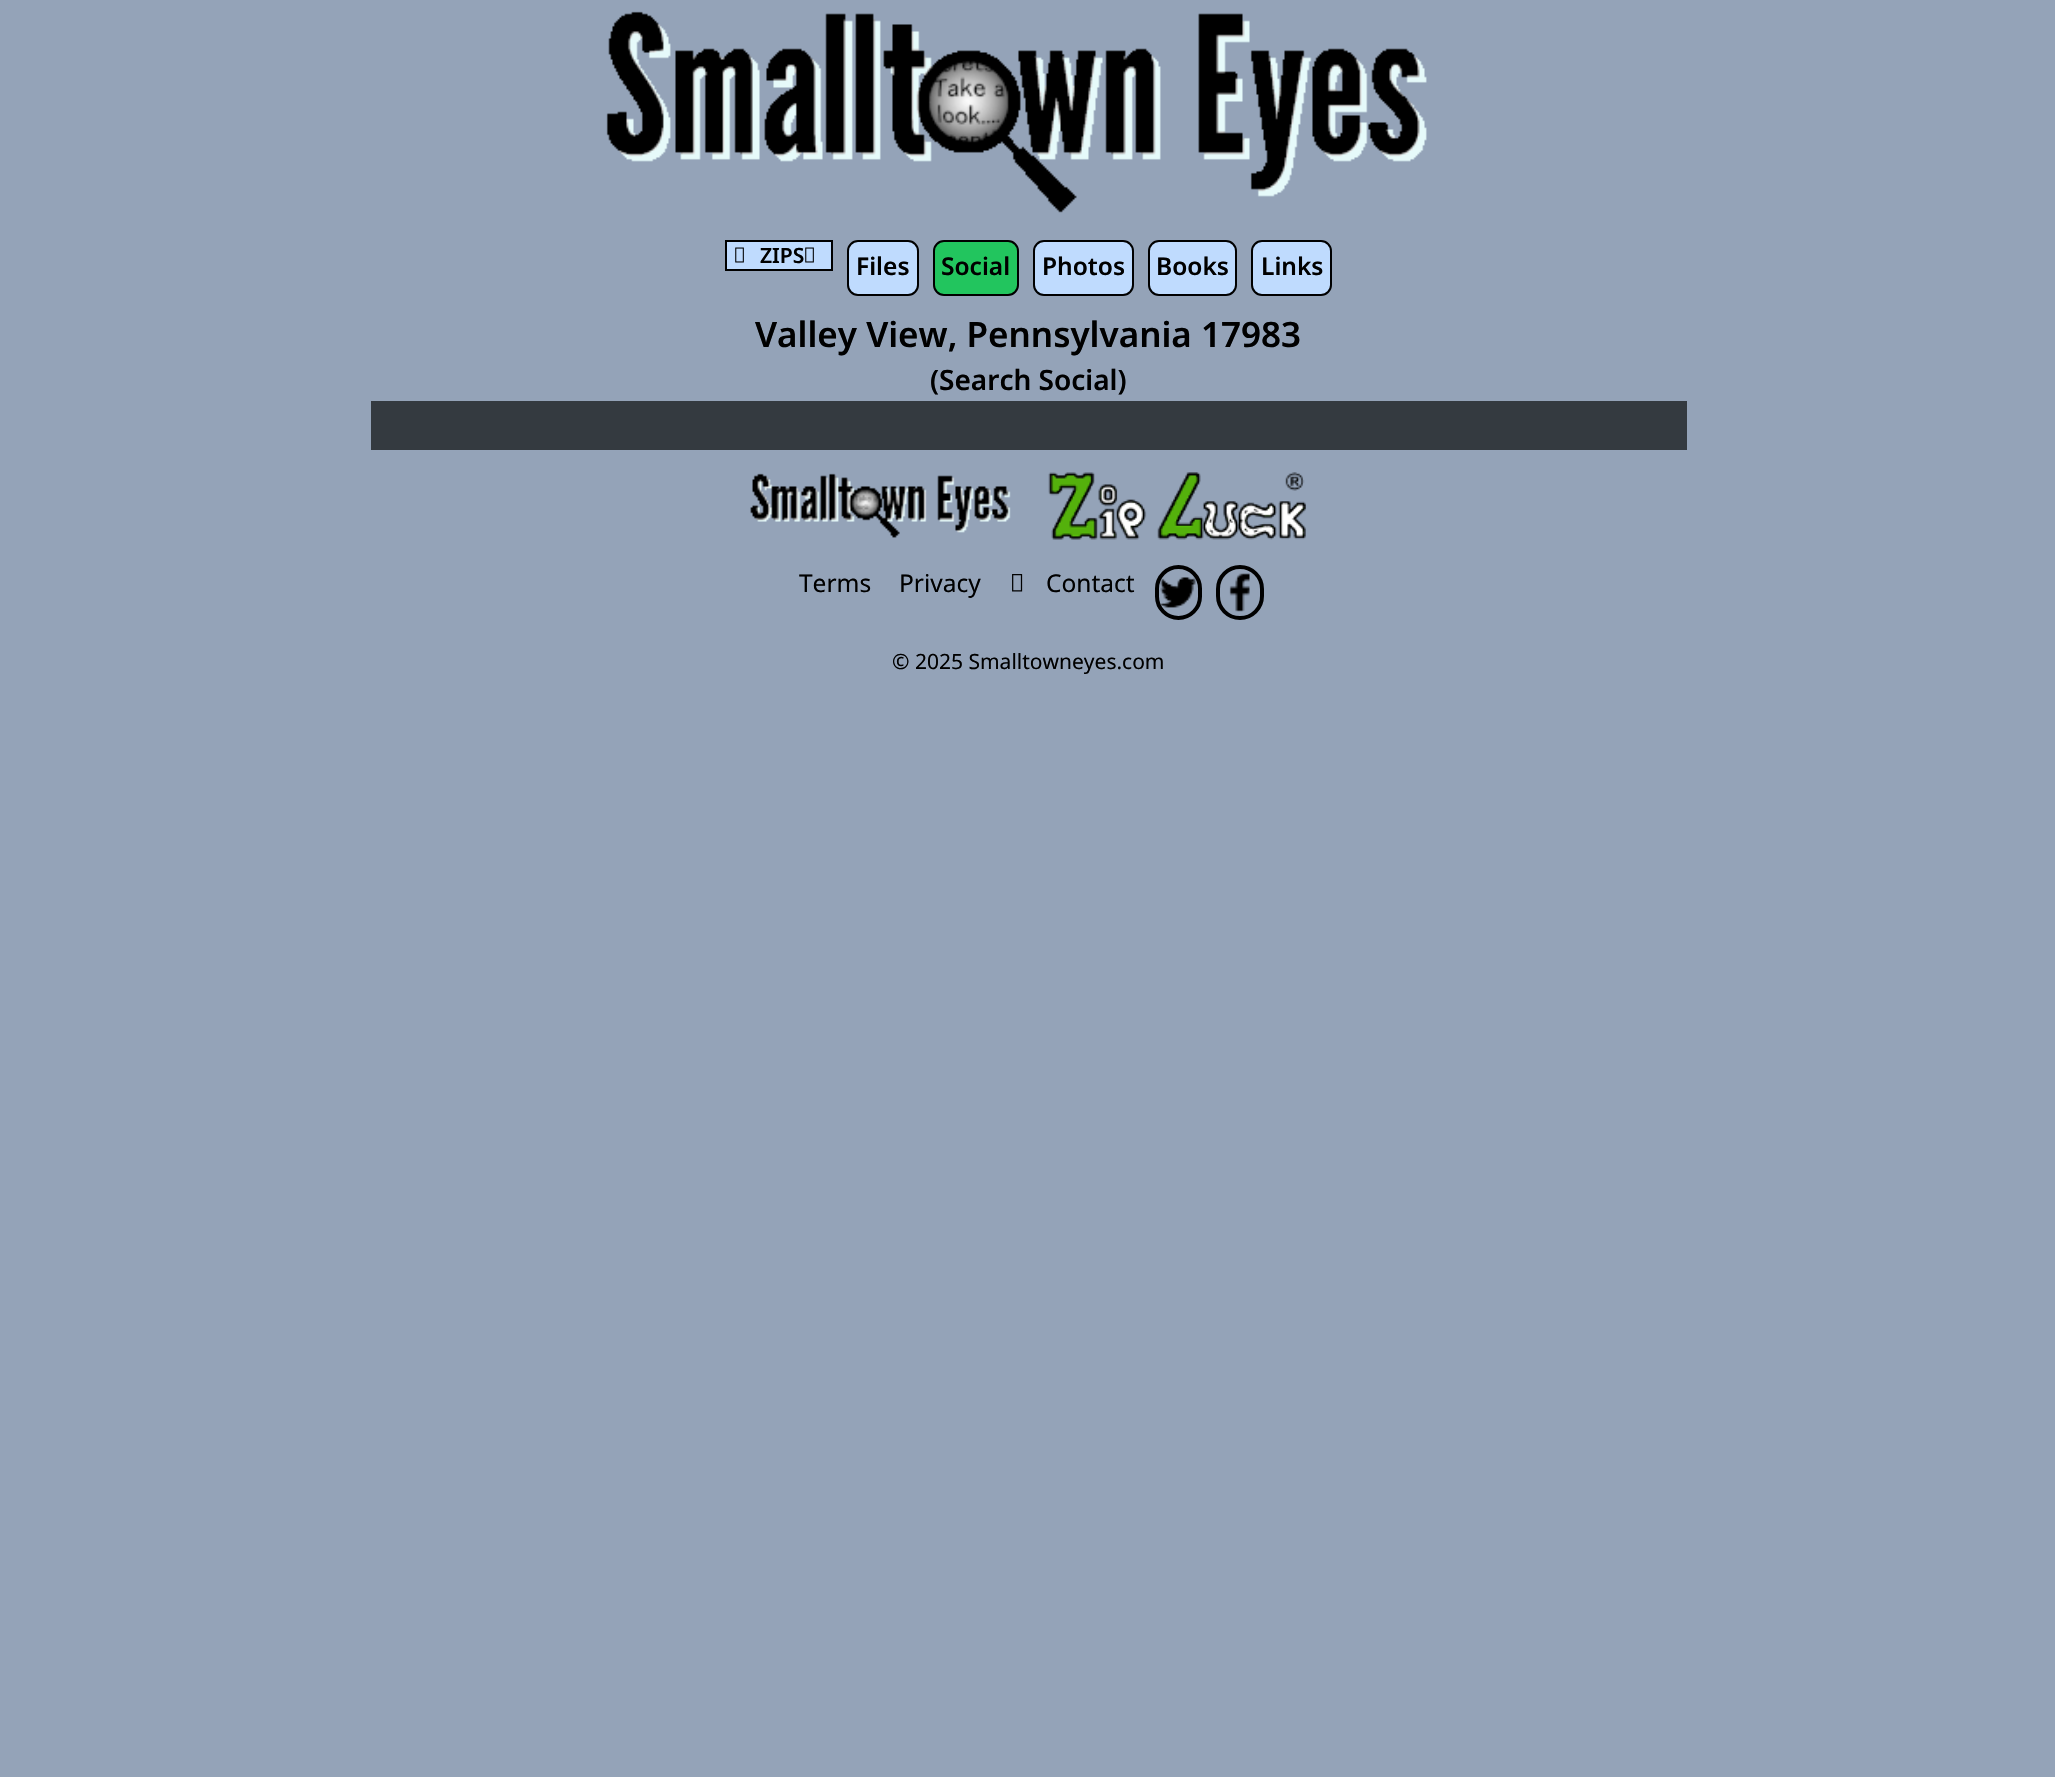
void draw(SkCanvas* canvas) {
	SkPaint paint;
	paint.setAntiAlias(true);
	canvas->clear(0xff94a3b8);
	canvas->drawImageRect(SkImages::DeferredFromEncodedData(SkData::MakeFromFileName("img1.png")), SkRect::MakeXYWH(606, 11, 821, 202), SkSamplingOptions());
	paint.setColor(0xffbfdbfe);
	canvas->drawRect(SkRect::MakeXYWH(726, 241, 106, 29), paint);
	paint.setStroke(true);
	paint.setStrokeWidth(2);
	paint.setColor(0xff000000);
	canvas->drawRect(SkRect::MakeXYWH(726, 241, 106, 29), paint);
	canvas->drawImageRect(SkImages::DeferredFromEncodedData(SkData::MakeFromFileName("img2.png")), SkRect::MakeXYWH(735, 247, 9, 16), SkSamplingOptions());
	SkFont f1(fontMgr->matchFamilyStyle("Noto Sans", SkFontStyle(600, SkFontStyle::kNormal_Width, SkFontStyle::kUpright_Slant)), 21);
	f1.setSubpixel(true);
	paint.setStroke(false);
	canvas->drawString("ZIPS", 760, 263, f1, paint);
	canvas->drawImageRect(SkImages::DeferredFromEncodedData(SkData::MakeFromFileName("img2.png")), SkRect::MakeXYWH(805, 247, 9, 16), SkSamplingOptions());
	paint.setColor(0xffbfdbfe);
	canvas->drawRoundRect(SkRect::MakeXYWH(848, 241, 70, 54), 10, 10, paint);
	paint.setStroke(true);
	paint.setColor(0xff000000);
	canvas->drawRoundRect(SkRect::MakeXYWH(848, 241, 70, 54), 10, 10, paint);
	SkFont f2(fontMgr->matchFamilyStyle("Noto Sans", SkFontStyle(600, SkFontStyle::kNormal_Width, SkFontStyle::kUpright_Slant)), 24.5);
	f2.setSubpixel(true);
	paint.setStroke(false);
	canvas->drawString("Files", 856, 275, f2, paint);
	paint.setColor(0xff22c55e);
	canvas->drawRoundRect(SkRect::MakeXYWH(934, 241, 84, 54), 10, 10, paint);
	paint.setStroke(true);
	paint.setColor(0xff000000);
	canvas->drawRoundRect(SkRect::MakeXYWH(934, 241, 84, 54), 10, 10, paint);
	paint.setStroke(false);
	canvas->drawString("Social", 941, 275, f2, paint);
	paint.setColor(0xffbfdbfe);
	canvas->drawRoundRect(SkRect::MakeXYWH(1034, 241, 99, 54), 10, 10, paint);
	paint.setStroke(true);
	paint.setColor(0xff000000);
	canvas->drawRoundRect(SkRect::MakeXYWH(1034, 241, 99, 54), 10, 10, paint);
	paint.setStroke(false);
	canvas->drawString("Photos", 1042, 275, f2, paint);
	paint.setColor(0xffbfdbfe);
	canvas->drawRoundRect(SkRect::MakeXYWH(1149, 241, 87, 54), 10, 10, paint);
	paint.setStroke(true);
	paint.setColor(0xff000000);
	canvas->drawRoundRect(SkRect::MakeXYWH(1149, 241, 87, 54), 10, 10, paint);
	paint.setStroke(false);
	canvas->drawString("Books", 1156, 275, f2, paint);
	paint.setColor(0xffbfdbfe);
	canvas->drawRoundRect(SkRect::MakeXYWH(1252, 241, 79, 54), 10, 10, paint);
	paint.setStroke(true);
	paint.setColor(0xff000000);
	canvas->drawRoundRect(SkRect::MakeXYWH(1252, 241, 79, 54), 10, 10, paint);
	paint.setStroke(false);
	canvas->drawString("Links", 1261, 275, f2, paint);
	SkFont f3(fontMgr->matchFamilyStyle("Noto Sans", SkFontStyle(600, SkFontStyle::kNormal_Width, SkFontStyle::kUpright_Slant)), 35);
	f3.setSubpixel(true);
	canvas->drawString("Valley View, Pennsylvania 17983", 755, 347, f3, paint);
	SkFont f4(fontMgr->matchFamilyStyle("Noto Sans", SkFontStyle(600, SkFontStyle::kNormal_Width, SkFontStyle::kUpright_Slant)), 28);
	f4.setSubpixel(true);
	canvas->drawString("(Search Social)", 930, 390, f4, paint);
	paint.setColor(0xff343a40);
	canvas->drawRect(SkRect::MakeXYWH(371, 401, 1316, 49), paint);
	canvas->drawImageRect(SkImages::DeferredFromEncodedData(SkData::MakeFromFileName("img3.png")), SkRect::MakeXYWH(750, 473, 261, 65), SkSamplingOptions());
	canvas->drawImageRect(SkImages::DeferredFromEncodedData(SkData::MakeFromFileName("img4.png")), SkRect::MakeXYWH(1048, 472, 258, 68), SkSamplingOptions());
	SkFont f5(fontMgr->matchFamilyStyle("Noto Sans", SkFontStyle::Normal()), 24.5);
	f5.setSubpixel(true);
	paint.setColor(0xff000000);
	canvas->drawString("Terms", 799, 592, f5, paint);
	canvas->drawString("Privacy", 899, 592, f5, paint);
	canvas->drawImageRect(SkImages::DeferredFromEncodedData(SkData::MakeFromFileName("img5.png")), SkRect::MakeXYWH(1012, 574, 11, 18), SkSamplingOptions());
	canvas->drawString("Contact", 1046, 592, f5, paint);
	paint.setStroke(true);
	paint.setStrokeWidth(4);
	canvas->drawRoundRect(SkRect::MakeXYWH(1157, 567, 43, 51), 21.5, 21.5, paint);
	canvas->drawImageRect(SkImages::DeferredFromEncodedData(SkData::MakeFromFileName("img6.png")), SkRect::MakeXYWH(1160, 577, 36, 31), SkSamplingOptions());
	canvas->drawRoundRect(SkRect::MakeXYWH(1218, 567, 44, 51), 22, 22, paint);
	canvas->drawImageRect(SkImages::DeferredFromEncodedData(SkData::MakeFromFileName("img7.png")), SkRect::MakeXYWH(1229, 573, 21, 39), SkSamplingOptions());
	SkFont f6(fontMgr->matchFamilyStyle("Noto Sans", SkFontStyle::Normal()), 21);
	f6.setSubpixel(true);
	paint.setStroke(false);
	canvas->drawString("© 2025 Smalltowneyes.com", 892, 669, f6, paint);
}
